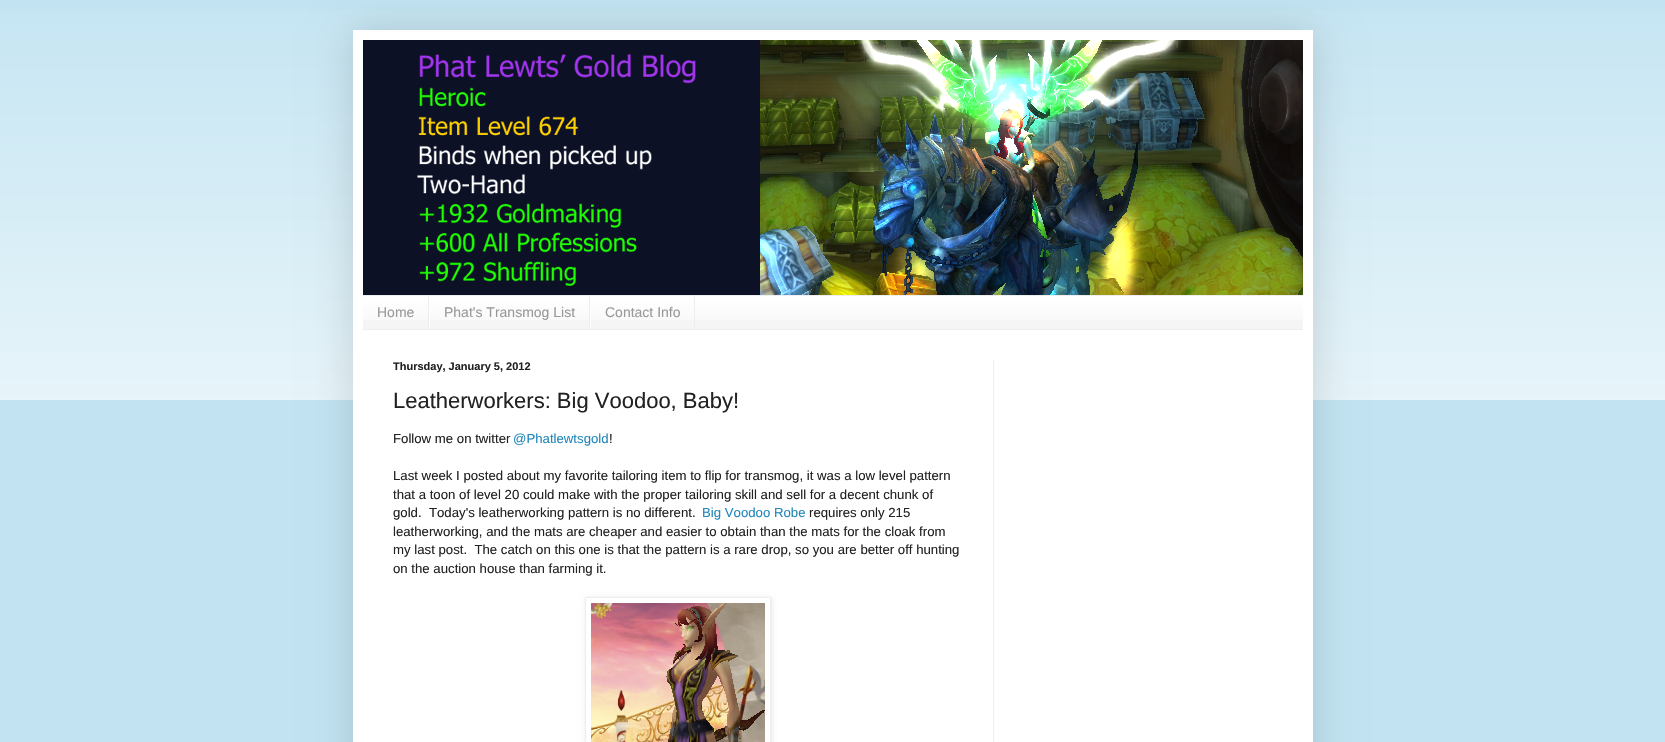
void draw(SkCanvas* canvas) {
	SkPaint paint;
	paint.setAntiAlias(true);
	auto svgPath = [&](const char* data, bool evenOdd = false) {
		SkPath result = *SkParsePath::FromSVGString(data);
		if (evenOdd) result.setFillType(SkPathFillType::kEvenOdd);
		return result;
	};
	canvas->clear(0xffc2e4f2);
	canvas->drawImageRect(SkImages::DeferredFromEncodedData(SkData::MakeFromFileName("img1.png")), SkRect::MakeXYWH(0, 10, 1665, 390), SkSamplingOptions());
	paint.setColor(0x26000000);
	paint.setMaskFilter(SkMaskFilter::MakeBlur(kNormal_SkBlurStyle, 20));
	canvas->drawRect(SkRect::MakeXYWH(353, 30, 960, 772), paint);
	paint.setMaskFilter(nullptr);
	paint.setColor(0xffffffff);
	canvas->drawRect(SkRect::MakeXYWH(353, 30, 960, 712), paint);
	canvas->drawImageRect(SkImages::DeferredFromEncodedData(SkData::MakeFromFileName("img2.png")), SkRect::MakeXYWH(363, 40, 940, 255), SkSamplingOptions());
	paint.setColor(0xfff5f5f5);
	canvas->drawRect(SkRect::MakeXYWH(363, 297, 940, 32), paint);
	canvas->drawImageRect(SkImages::DeferredFromEncodedData(SkData::MakeFromFileName("img3.png")), SkRect::MakeXYWH(363, 296, 940, 24), SkSamplingOptions());
	paint.setColor(0xffeeeeee);
	canvas->drawRect(SkRect::MakeXYWH(363, 295, 940, 1), paint);
	canvas->drawRect(SkRect::MakeXYWH(363, 329, 940, 1), paint);
	canvas->drawRect(SkRect::MakeXYWH(428, 296, 1, 33), paint);
	SkFont f1(fontMgr->matchFamilyStyle("Liberation Sans", SkFontStyle::Normal()), 14);
	f1.setSubpixel(true);
	paint.setColor(0xff999999);
	canvas->drawString("Home", 377, 317, f1, paint);
	paint.setColor(0xffeeeeee);
	canvas->drawRect(SkRect::MakeXYWH(589, 296, 1, 33), paint);
	paint.setColor(0xffffffff);
	canvas->drawRect(SkRect::MakeXYWH(429, 307, 1, 22), paint);
	paint.setColor(0xff999999);
	canvas->drawString("Phat's Transmog List", 444, 317, f1, paint);
	paint.setColor(0xffeeeeee);
	canvas->drawRect(SkRect::MakeXYWH(694, 296, 1, 33), paint);
	paint.setColor(0xffffffff);
	canvas->drawRect(SkRect::MakeXYWH(590, 307, 1, 22), paint);
	paint.setColor(0xff999999);
	canvas->drawString("Contact Info", 605, 317, f1, paint);
	SkFont f2(fontMgr->matchFamilyStyle("Liberation Sans", SkFontStyle::Bold()), 11);
	f2.setSubpixel(true);
	paint.setColor(0xff222222);
	canvas->drawString("Thursday, January 5, 2012", 393, 370, f2, paint);
	SkFont f3(fontMgr->matchFamilyStyle("Liberation Sans", SkFontStyle::Normal()), 22);
	f3.setSubpixel(true);
	canvas->drawString("Leatherworkers: Big Voodoo, Baby!", 393, 408, f3, paint);
	SkFont f4(fontMgr->matchFamilyStyle("Liberation Sans", SkFontStyle::Normal()), 13.2);
	f4.setSubpixel(true);
	canvas->drawString("Follow me on twitter", 393, 443, f4, paint);
	paint.setColor(0xff2288bb);
	canvas->drawString("@Phatlewtsgold", 513, 443, f4, paint);
	paint.setColor(0xff222222);
	canvas->drawString("!", 609, 443, f4, paint);
	canvas->drawString("Last week I posted about my favorite tailoring item to flip for transmog, it was a low level pattern", 393, 480, f4, paint);
	canvas->drawString("that a toon of level 20 could make with the proper tailoring skill and sell for a decent chunk of", 393, 499, f4, paint);
	canvas->drawString("gold.  Today's leatherworking pattern is no different.", 393, 517, f4, paint);
	paint.setColor(0xff2288bb);
	canvas->drawString("Big Voodoo Robe", 702, 517, f4, paint);
	paint.setColor(0xff222222);
	canvas->drawString("requires only 215", 809, 517, f4, paint);
	canvas->drawString("leatherworking, and the mats are cheaper and easier to obtain than the mats for the cloak from", 393, 536, f4, paint);
	canvas->drawString("my last post.  The catch on this one is that the pattern is a rare drop, so you are better off hunting", 393, 554, f4, paint);
	canvas->drawString("on the auction house than farming it.", 393, 573, f4, paint);
	canvas->save();
	canvas->clipPath(svgPath("M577 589H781V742H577ZM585 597H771V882H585Z", true), true);
	paint.setColor(0x1a000000);
	paint.setMaskFilter(SkMaskFilter::MakeBlur(kNormal_SkBlurStyle, 2.5));
	canvas->drawRect(SkRect::MakeXYWH(586, 598, 186, 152), paint);
	paint.setMaskFilter(nullptr);
	canvas->restore();
	paint.setStroke(true);
	paint.setStrokeWidth(1);
	paint.setColor(0xffeeeeee);
	canvas->drawRect(SkRect::MakeXYWH(585.5, 597.5, 185, 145), paint);
	canvas->drawImageRect(SkImages::DeferredFromEncodedData(SkData::MakeFromFileName("img4.png")), SkRect::MakeXYWH(591, 603, 174, 139), SkSamplingOptions());
	paint.setStroke(false);
	canvas->drawRect(SkRect::MakeXYWH(993, 360, 1, 382), paint);
}
